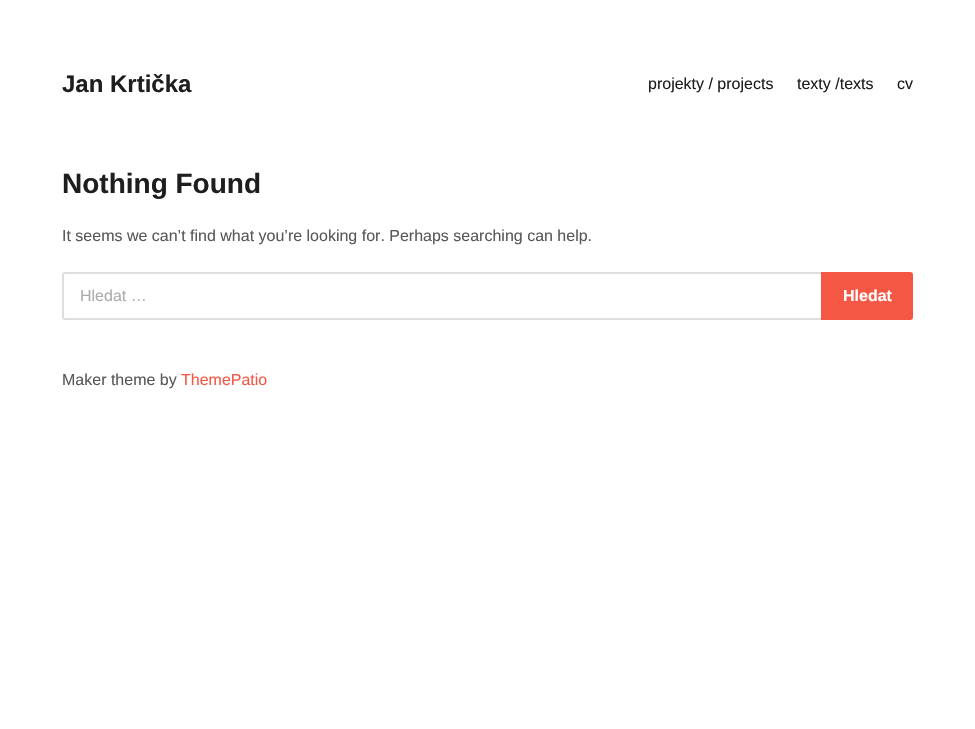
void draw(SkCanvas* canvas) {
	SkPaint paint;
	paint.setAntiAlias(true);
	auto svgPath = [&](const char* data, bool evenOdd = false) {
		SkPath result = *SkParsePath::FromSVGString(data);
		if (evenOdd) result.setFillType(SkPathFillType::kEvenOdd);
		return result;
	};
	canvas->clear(0xffffffff);
	SkFont f1(fontMgr->matchFamilyStyle("Liberation Sans", SkFontStyle::Bold()), 24);
	f1.setSubpixel(true);
	paint.setColor(0xff1e1e1e);
	canvas->drawString("Jan Krtička", 62, 92, f1, paint);
	SkFont f2(fontMgr->matchFamilyStyle("Liberation Sans", SkFontStyle::Normal()), 16);
	f2.setSubpixel(true);
	canvas->drawString("projekty / projects", 648, 89, f2, paint);
	canvas->drawString("texty /texts", 797, 89, f2, paint);
	canvas->drawString("cv", 897, 89, f2, paint);
	SkFont f3(fontMgr->matchFamilyStyle("Liberation Sans", SkFontStyle::Bold()), 28);
	f3.setSubpixel(true);
	canvas->drawString("Nothing Found", 62, 193, f3, paint);
	paint.setColor(0xff585858);
	canvas->drawString("It seems we can’t find what you’re looking for. Perhaps searching can help.", 62, 241, f2, paint);
	paint.setStroke(true);
	paint.setStrokeWidth(2);
	paint.setColor(0xffdedede);
	canvas->drawRoundRect(SkRect::MakeXYWH(63, 273, 849, 46), 2, 2, paint);
	paint.setStroke(false);
	paint.setColor(0xffacacac);
	canvas->drawString("Hledat …", 80, 301, f2, paint);
	paint.setColor(0xfff45844);
	canvas->drawPath(svgPath("M822 273H910C911 273 912 274 912 275V317C912 318 911 319 910 319H822Z"), paint);
	paint.setStroke(true);
	canvas->drawPath(svgPath("M822 273H910C911 273 912 274 912 275V317C912 318 911 319 910 319H822Z"), paint);
	SkFont f4(fontMgr->matchFamilyStyle("Liberation Sans", SkFontStyle::Bold()), 16);
	f4.setSubpixel(true);
	paint.setStroke(false);
	paint.setColor(0xffffffff);
	canvas->drawString("Hledat", 843, 301, f4, paint);
	paint.setColor(0xff585858);
	canvas->drawString("Maker theme by", 62, 385, f2, paint);
	paint.setColor(0xfff45844);
	canvas->drawString("ThemePatio", 181, 385, f2, paint);
}
